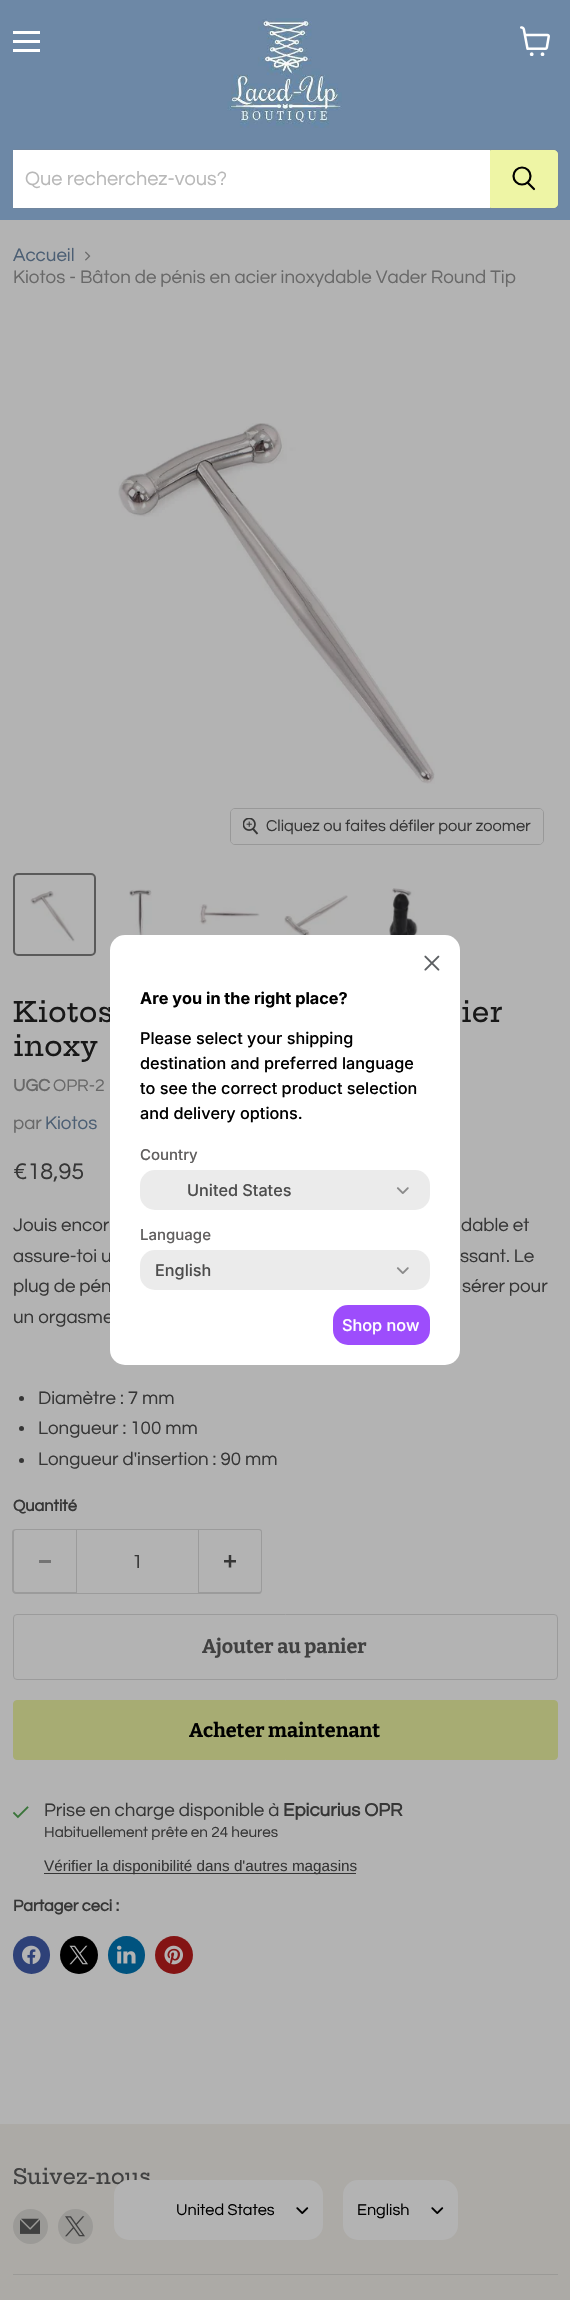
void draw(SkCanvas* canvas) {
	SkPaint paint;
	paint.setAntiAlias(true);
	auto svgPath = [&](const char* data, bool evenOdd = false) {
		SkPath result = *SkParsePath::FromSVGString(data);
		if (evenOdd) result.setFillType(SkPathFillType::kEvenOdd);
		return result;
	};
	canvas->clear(0xffb3b3b3);
	paint.setColor(0xff6d88a6);
	canvas->drawRect(SkRect::MakeXYWH(0, 0, 570, 220), paint);
	paint.setColor(0xffffffff);
	canvas->drawRect(SkRect::MakeXYWH(13, 31, 27, 3), paint);
	canvas->drawRect(SkRect::MakeXYWH(13, 40, 27, 3), paint);
	canvas->drawRect(SkRect::MakeXYWH(13, 49, 27, 3), paint);
	canvas->drawImageRect(SkImages::DeferredFromEncodedData(SkData::MakeFromFileName("img1.png")), SkRect::MakeXYWH(520, 26, 30, 30), SkSamplingOptions());
	canvas->drawImageRect(SkImages::DeferredFromEncodedData(SkData::MakeFromFileName("img2.png")), SkRect::MakeXYWH(227, 18, 115, 110), SkSamplingOptions());
	paint.setStroke(true);
	paint.setStrokeWidth(1);
	paint.setColor(0xff71869e);
	canvas->drawRoundRect(SkRect::MakeXYWH(11.5, 149.5, 547, 59), 4.5, 4.5, paint);
	paint.setStroke(false);
	paint.setColor(0xffffffff);
	canvas->drawRect(SkRect::MakeXYWH(13, 150, 477, 58), paint);
	SkFont f1(fontMgr->matchFamilyStyle("Questrial", SkFontStyle::Normal()), 20);
	f1.setSubpixel(true);
	paint.setColor(0xffb8b8b8);
	canvas->drawString("Que recherchez-vous?", 25, 185, f1, paint);
	paint.setColor(0xffeef5a5);
	canvas->drawPath(svgPath("M490.5 150.5H554C556 150.5 557.5 152 557.5 154V204C557.5 206 556 207.5 554 207.5H490.5Z"), paint);
	paint.setStroke(true);
	canvas->drawPath(svgPath("M490.5 150.5H554C556 150.5 557.5 152 557.5 154V204C557.5 206 556 207.5 554 207.5H490.5Z"), paint);
	paint.setStrokeWidth(2.2);
	paint.setStrokeCap(SkPaint::kRound_Cap);
	paint.setColor(0xff000000);
	canvas->drawPath(svgPath("M534 189L528 183"), paint);
	paint.setStrokeCap(SkPaint::kButt_Cap);
	canvas->drawCircle(522, 176, 8.5, paint);
	SkFont f2(fontMgr->matchFamilyStyle("Questrial", SkFontStyle::Normal()), 18.75);
	f2.setSubpixel(true);
	paint.setStroke(false);
	paint.setColor(0xff4c5f74);
	canvas->drawString("Accueil", 13, 261, f2, paint);
	canvas->drawImageRect(SkImages::DeferredFromEncodedData(SkData::MakeFromFileName("img3.png")), SkRect::MakeXYWH(85, 251, 6, 10), SkSamplingOptions());
	paint.setColor(0xff686868);
	canvas->drawString("Kiotos - Bâton de pénis en acier inoxydable Vader Round Tip", 13, 283, f2, paint);
	canvas->drawImageRect(SkImages::DeferredFromEncodedData(SkData::MakeFromFileName("img4.png")), SkRect::MakeXYWH(118, 423, 317, 361), SkSamplingOptions());
	paint.setStroke(true);
	paint.setStrokeWidth(1);
	paint.setColor(0xff989898);
	canvas->drawRoundRect(SkRect::MakeXYWH(230.5, 808.5, 313, 36), 4.5, 4.5, paint);
	paint.setStroke(false);
	paint.setColor(0xe6b3b3b3);
	canvas->drawRoundRect(SkRect::MakeXYWH(231, 809, 312, 35), 4, 4, paint);
	canvas->drawImageRect(SkImages::DeferredFromEncodedData(SkData::MakeFromFileName("img5.png")), SkRect::MakeXYWH(243, 818, 16, 17), SkSamplingOptions());
	SkFont f3(fontMgr->matchFamilyStyle("Questrial", SkFontStyle::Normal()), 16.4);
	f3.setSubpixel(true);
	paint.setColor(0xff363636);
	canvas->drawString("Cliquez ou faites défiler pour zoomer", 266, 831, f3, paint);
	paint.setStroke(true);
	paint.setStrokeWidth(2);
	paint.setColor(0xff5a5a5a);
	canvas->drawRoundRect(SkRect::MakeXYWH(14, 874, 81, 81), 4, 4, paint);
	canvas->drawImageRect(SkImages::DeferredFromEncodedData(SkData::MakeFromFileName("img6.png")), SkRect::MakeXYWH(30, 891, 45, 51), SkSamplingOptions());
	canvas->drawImageRect(SkImages::DeferredFromEncodedData(SkData::MakeFromFileName("img7.png")), SkRect::MakeXYWH(129, 889, 23, 46), SkSamplingOptions());
	canvas->drawImageRect(SkImages::DeferredFromEncodedData(SkData::MakeFromFileName("img8.png")), SkRect::MakeXYWH(199, 904, 61, 21), SkSamplingOptions());
	canvas->drawImageRect(SkImages::DeferredFromEncodedData(SkData::MakeFromFileName("img9.png")), SkRect::MakeXYWH(284, 895, 64, 40), SkSamplingOptions());
	canvas->drawImageRect(SkImages::DeferredFromEncodedData(SkData::MakeFromFileName("img10.png")), SkRect::MakeXYWH(389, 888, 29, 47), SkSamplingOptions());
	SkFont f4(fontMgr->matchFamilyStyle("Hepta Slab", SkFontStyle(500, SkFontStyle::kNormal_Width, SkFontStyle::kUpright_Slant)), 28);
	f4.setSubpixel(true);
	paint.setStroke(false);
	paint.setColor(0xff181818);
	canvas->drawString("Kiotos", 13, 1022, f4, paint);
	canvas->drawString("ier", 461, 1022, f4, paint);
	canvas->drawString("inoxy", 13, 1056, f4, paint);
	SkFont f5(fontMgr->matchFamilyStyle("Questrial", SkFontStyle::Bold()), 17.5);
	f5.setSubpixel(true);
	paint.setColor(0xff686868);
	canvas->drawString("UGC", 13, 1091, f5, paint);
	SkFont f6(fontMgr->matchFamilyStyle("Questrial", SkFontStyle::Normal()), 17.5);
	f6.setSubpixel(true);
	canvas->drawString("OPR-2", 53, 1091, f6, paint);
	canvas->drawString("par", 13, 1129, f2, paint);
	paint.setColor(0xff4c5f74);
	canvas->drawString("Kiotos", 45, 1129, f2, paint);
	SkFont f7(fontMgr->matchFamilyStyle("Questrial", SkFontStyle::Normal()), 23.5);
	f7.setSubpixel(true);
	paint.setColor(0xff363636);
	canvas->drawString("€18,95", 13, 1179, f7, paint);
	canvas->drawString("Jouis encor", 13, 1231, f2, paint);
	canvas->drawString("dable et", 461, 1231, f2, paint);
	canvas->drawString("assure-toi u", 13, 1262, f2, paint);
	canvas->drawString("ssant. Le", 460, 1262, f2, paint);
	canvas->drawString("plug de pén", 13, 1292, f2, paint);
	canvas->drawString("sérer pour", 462, 1292, f2, paint);
	canvas->drawString("un orgasme", 13, 1323, f2, paint);
	canvas->drawCircle(21.5, 1398.5, 2.5, paint);
	canvas->drawString("Diamètre : 7 mm", 38, 1404, f2, paint);
	canvas->drawCircle(21.5, 1428.5, 2.5, paint);
	canvas->drawString("Longueur : 100 mm", 38, 1434, f2, paint);
	canvas->drawCircle(21.5, 1460.5, 2.5, paint);
	canvas->drawString("Longueur d'insertion : 90 mm", 38, 1465, f2, paint);
	SkFont f8(fontMgr->matchFamilyStyle("Questrial", SkFontStyle::Bold()), 16.4);
	f8.setSubpixel(true);
	canvas->drawString("Quantité", 13, 1511, f8, paint);
	paint.setColor(0xff9b9b9b);
	canvas->drawPath(svgPath("M16 1529H76V1594H16C14 1594 12 1592 12 1590V1532C12 1530 14 1529 16 1529ZM16 1530H76V1592H16C15 1592 14 1591 14 1590V1532C14 1531 15 1530 16 1530Z", true), paint);
	paint.setColor(0xff747474);
	canvas->drawRect(SkRect::MakeXYWH(39, 1560, 12, 3), paint);
	paint.setStroke(true);
	paint.setStrokeWidth(1);
	paint.setColor(0xff9b9b9b);
	canvas->drawRect(SkRect::MakeXYWH(76.5, 1529.5, 122, 64), paint);
	SkFont f9(fontMgr->matchFamilyStyle("Questrial", SkFontStyle::Normal()), 19.75);
	f9.setSubpixel(true);
	paint.setStroke(false);
	paint.setColor(0xff363636);
	canvas->drawString("1", 132, 1568, f9, paint);
	paint.setColor(0xff9b9b9b);
	canvas->drawPath(svgPath("M199 1529H259C261 1529 262 1530 262 1532V1590C262 1592 261 1594 259 1594H199ZM199 1530H259C260 1530 261 1531 261 1532V1590C261 1591 260 1592 259 1592H199Z", true), paint);
	canvas->drawImageRect(SkImages::DeferredFromEncodedData(SkData::MakeFromFileName("img11.png")), SkRect::MakeXYWH(224, 1555, 12, 13), SkSamplingOptions());
	paint.setStroke(true);
	canvas->drawRoundRect(SkRect::MakeXYWH(13.5, 1614.5, 544, 65), 3.5, 3.5, paint);
	SkFont f10(fontMgr->matchFamilyStyle("Bitter", SkFontStyle::Bold()), 19.75);
	f10.setSubpixel(true);
	paint.setStroke(false);
	paint.setColor(0xff404040);
	canvas->drawString("Ajouter au panier", 202, 1653, f10, paint);
	paint.setColor(0xffa7ac73);
	canvas->drawRoundRect(SkRect::MakeXYWH(13.5, 1700.5, 544, 59), 3.5, 3.5, paint);
	paint.setStroke(true);
	canvas->drawRoundRect(SkRect::MakeXYWH(13.5, 1700.5, 544, 59), 3.5, 3.5, paint);
	paint.setStroke(false);
	paint.setColor(0xff000000);
	canvas->drawString("Acheter maintenant", 189, 1737, f10, paint);
	canvas->drawImageRect(SkImages::DeferredFromEncodedData(SkData::MakeFromFileName("img12.png")), SkRect::MakeXYWH(13, 1806, 16, 13), SkSamplingOptions());
	paint.setColor(0xff363636);
	canvas->drawString("Prise en charge disponible à", 44, 1816, f2, paint);
	SkFont f11(fontMgr->matchFamilyStyle("Questrial", SkFontStyle::Bold()), 18.75);
	f11.setSubpixel(true);
	canvas->drawString("Epicurius OPR", 283, 1816, f11, paint);
	SkFont f12(fontMgr->matchFamilyStyle("Questrial", SkFontStyle::Normal()), 15.25);
	f12.setSubpixel(true);
	canvas->drawString("Habituellement prête en 24 heures", 44, 1837, f12, paint);
	canvas->drawRect(SkRect::MakeXYWH(44, 1873, 312, 1), paint);
	SkFont f13(fontMgr->matchFamilyStyle("Liberation Sans", SkFontStyle::Normal()), 15.25);
	f13.setSubpixel(true);
	canvas->drawString("Vérifier la disponibilité dans d'autres magasins", 44, 1871, f13, paint);
	canvas->drawString("Partager ceci :", 13, 1911, f8, paint);
	paint.setColor(0xff2e4178);
	canvas->drawRoundRect(SkRect::MakeXYWH(13, 1936, 37, 38), 18.5, 18.5, paint);
	canvas->drawImageRect(SkImages::DeferredFromEncodedData(SkData::MakeFromFileName("img13.png")), SkRect::MakeXYWH(22, 1945, 19, 20), SkSamplingOptions());
	paint.setColor(0xff000000);
	canvas->drawCircle(79, 1955, 19, paint);
	canvas->drawImageRect(SkImages::DeferredFromEncodedData(SkData::MakeFromFileName("img14.png")), SkRect::MakeXYWH(69, 1945, 19, 20), SkSamplingOptions());
	paint.setColor(0xff00537f);
	canvas->drawRoundRect(SkRect::MakeXYWH(108, 1936, 37, 38), 18.5, 18.5, paint);
	canvas->drawImageRect(SkImages::DeferredFromEncodedData(SkData::MakeFromFileName("img15.png")), SkRect::MakeXYWH(117, 1945, 19, 19), SkSamplingOptions());
	paint.setColor(0xff841414);
	canvas->drawCircle(174, 1955, 19, paint);
	canvas->drawImageRect(SkImages::DeferredFromEncodedData(SkData::MakeFromFileName("img16.png")), SkRect::MakeXYWH(164, 1945, 19, 20), SkSamplingOptions());
	paint.setColor(0xffffffff);
	canvas->drawRoundRect(SkRect::MakeXYWH(110, 935, 350, 430), 15, 15, paint);
	canvas->drawImageRect(SkImages::DeferredFromEncodedData(SkData::MakeFromFileName("img17.png")), SkRect::MakeXYWH(424, 955, 16, 16), SkSamplingOptions());
	SkFont f14(fontMgr->matchFamilyStyle("Inter", SkFontStyle::Bold()), 16.25);
	f14.setSubpixel(true);
	paint.setColor(0xff000000);
	canvas->drawString("Are you in the right place?", 140, 1004, f14, paint);
	SkFont f15(fontMgr->matchFamilyStyle("Inter", SkFontStyle(500, SkFontStyle::kNormal_Width, SkFontStyle::kUpright_Slant)), 16.25);
	f15.setSubpixel(true);
	canvas->drawString("Please select your shipping", 140, 1044, f15, paint);
	canvas->drawString("destination and preferred language", 140, 1069, f15, paint);
	canvas->drawString("to see the correct product selection", 140, 1094, f15, paint);
	canvas->drawString("and delivery options.", 140, 1119, f15, paint);
	SkFont f16(fontMgr->matchFamilyStyle("Inter", SkFontStyle(500, SkFontStyle::kNormal_Width, SkFontStyle::kUpright_Slant)), 15);
	f16.setSubpixel(true);
	paint.setColor(0xff615f5f);
	canvas->drawString("Country", 140, 1160, f16, paint);
	paint.setColor(0xffebebeb);
	canvas->drawRoundRect(SkRect::MakeXYWH(140, 1170, 290, 40), 15, 15, paint);
	paint.setColor(0xff4d4d4d);
	canvas->drawString("United States", 187, 1196, f15, paint);
	canvas->drawImageRect(SkImages::DeferredFromEncodedData(SkData::MakeFromFileName("img18.png")), SkRect::MakeXYWH(396, 1187, 13, 7), SkSamplingOptions());
	paint.setColor(0xff615f5f);
	canvas->drawString("Language", 140, 1240, f16, paint);
	paint.setColor(0xffebebeb);
	canvas->drawRoundRect(SkRect::MakeXYWH(140, 1250, 290, 40), 15, 15, paint);
	paint.setColor(0xff4d4d4d);
	canvas->drawString("English", 155, 1276, f15, paint);
	canvas->drawImageRect(SkImages::DeferredFromEncodedData(SkData::MakeFromFileName("img18.png")), SkRect::MakeXYWH(396, 1267, 13, 7), SkSamplingOptions());
	paint.setColor(0xff9d4dfc);
	canvas->drawRoundRect(SkRect::MakeXYWH(333, 1305, 97, 40), 15, 15, paint);
	paint.setColor(0xffffffff);
	canvas->drawString("Shop now", 342, 1331, f15, paint);
	paint.setColor(0xffacaaa6);
	canvas->drawRect(SkRect::MakeXYWH(0, 2124, 570, 176), paint);
	paint.setColor(0xff9b9a97);
	canvas->drawRect(SkRect::MakeXYWH(13, 2274, 545, 1), paint);
	SkFont f17(fontMgr->matchFamilyStyle("Hepta Slab", SkFontStyle(500, SkFontStyle::kNormal_Width, SkFontStyle::kUpright_Slant)), 21);
	f17.setSubpixel(true);
	paint.setColor(0xff404040);
	canvas->drawString("Suivez-nous", 13, 2184, f17, paint);
	paint.setColor(0xff9b9a97);
	canvas->drawCircle(30.5, 2226.5, 17.5, paint);
	canvas->drawImageRect(SkImages::DeferredFromEncodedData(SkData::MakeFromFileName("img19.png")), SkRect::MakeXYWH(20, 2218, 20, 16), SkSamplingOptions());
	canvas->drawCircle(75.5, 2226.5, 17.5, paint);
	canvas->drawImageRect(SkImages::DeferredFromEncodedData(SkData::MakeFromFileName("img20.png")), SkRect::MakeXYWH(65, 2216, 20, 21), SkSamplingOptions());
	paint.setColor(0xffb3b3b3);
	canvas->drawRoundRect(SkRect::MakeXYWH(114, 2180, 209, 60), 15, 15, paint);
	SkFont f18(fontMgr->matchFamilyStyle("Questrial", SkFontStyle::Normal()), 16.25);
	f18.setSubpixel(true);
	paint.setColor(0xff000000);
	canvas->drawString("United States", 176, 2215, f18, paint);
	canvas->drawImageRect(SkImages::DeferredFromEncodedData(SkData::MakeFromFileName("img21.png")), SkRect::MakeXYWH(296, 2207, 13, 7), SkSamplingOptions());
	paint.setColor(0xffb3b3b3);
	canvas->drawRoundRect(SkRect::MakeXYWH(343, 2180, 115, 60), 15, 15, paint);
	paint.setColor(0xff000000);
	canvas->drawString("English", 357, 2215, f18, paint);
	canvas->drawImageRect(SkImages::DeferredFromEncodedData(SkData::MakeFromFileName("img21.png")), SkRect::MakeXYWH(431, 2207, 13, 7), SkSamplingOptions());
}
